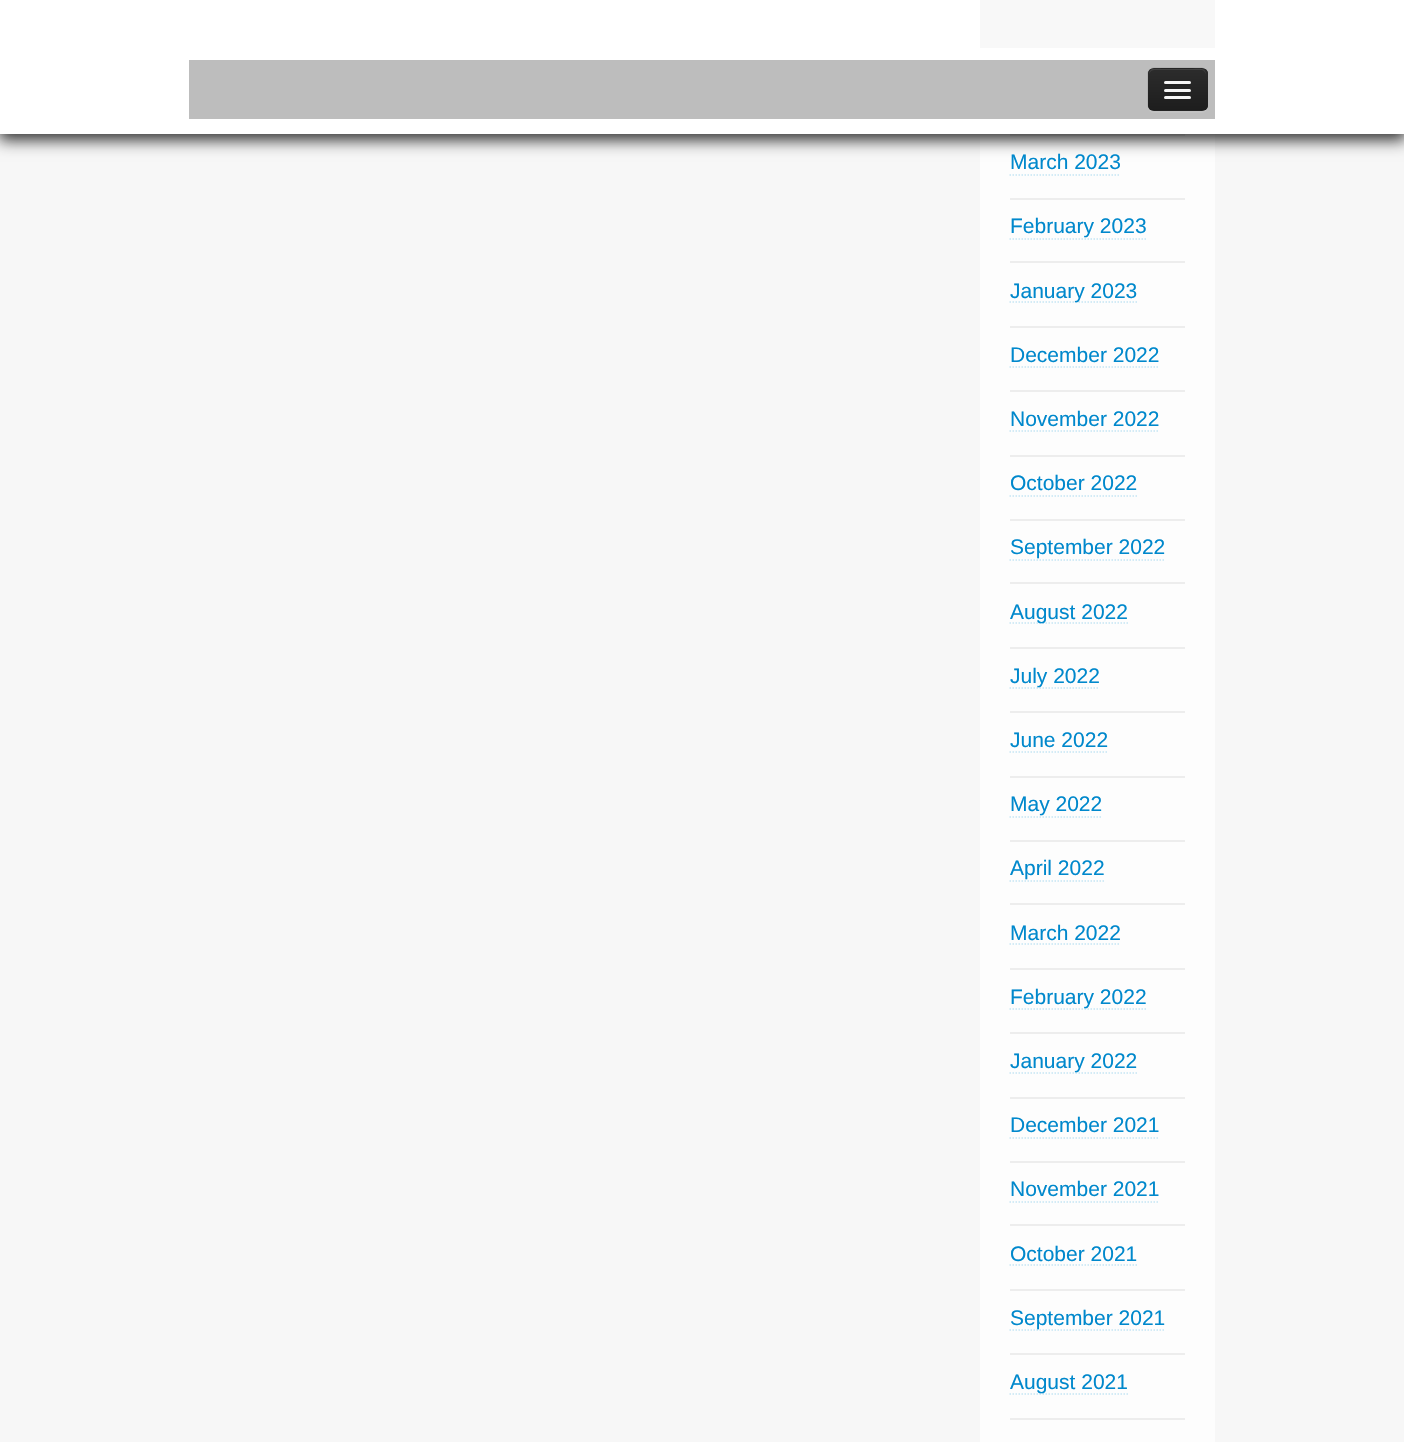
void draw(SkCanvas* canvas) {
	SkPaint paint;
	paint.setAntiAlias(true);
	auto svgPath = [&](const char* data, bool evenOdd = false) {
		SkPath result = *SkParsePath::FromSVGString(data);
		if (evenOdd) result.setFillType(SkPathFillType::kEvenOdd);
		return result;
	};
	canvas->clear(0xfff7f7f7);
	paint.setColor(0xfffdfdfd);
	canvas->drawRect(SkRect::MakeXYWH(980, 48, 235, 1394), paint);
	paint.setColor(0xffb6b6b6);
	canvas->drawRect(SkRect::MakeXYWH(980, 0, 235, 48), paint);
	paint.setColor(0xffededed);
	canvas->drawRect(SkRect::MakeXYWH(1010, 134, 175, 2), paint);
	paint.setStroke(true);
	paint.setStrokeWidth(1.5);
	paint.setColor(0xffc5e5f4);
	paint.setPathEffect(SkDashPathEffect::Make({{1.5f, 1.5f}}, 0));
	canvas->drawPath(svgPath("M1009.5 110H1104"), paint);
	paint.setPathEffect(nullptr);
	canvas->save();
	canvas->clipPath(svgPath("M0 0H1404V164H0ZM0 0H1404V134H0Z", true), true);
	paint.setStroke(false);
	paint.setColor(0xcf000000);
	paint.setMaskFilter(SkMaskFilter::MakeBlur(kNormal_SkBlurStyle, 7.5));
	canvas->drawRect(SkRect::MakeXYWH(-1, 3, 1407, 137), paint);
	paint.setMaskFilter(nullptr);
	canvas->restore();
	paint.setColor(0xe6ffffff);
	canvas->drawRect(SkRect::MakeXYWH(0, 0, 1404, 134), paint);
	paint.setColor(0xe6b6b6b6);
	canvas->drawRect(SkRect::MakeXYWH(189, 60, 1026, 59), paint);
	paint.setColor(0xffc2c2c2);
	canvas->drawPath(svgPath("M1148 107C1148 111 1151 113 1154 113H1202C1205 113 1208 110 1208 107V75L1207 72V106L1206 108C1206 110 1204 111 1203 111H1162C1157 111 1150 113 1148 107Z"), paint);
	paint.setColor(0xff262626);
	canvas->drawRoundRect(SkRect::MakeXYWH(1148, 68, 60, 43), 6, 6, paint);
	canvas->save();
	canvas->clipPath(svgPath("M1154 68H1202C1205.5 68 1208 70.5 1208 74V105C1208 108.5 1205.5 111 1202 111H1154C1150.5 111 1148 108.5 1148 105V74C1148 70.5 1150.5 68 1154 68Z"), true);
	{
		const SkColor colors[] = {0xff2c2c2c, 0xff1d1d1d};
		const float stops[] = {0, 1};
		const SkPoint ends[] = {{1178, 69}, {1178, 110}};
		paint.setShader(SkGradientShader::MakeLinear(ends, colors, stops, 2, SkTileMode::kClamp));
		paint.setAlpha(255);
	}
	canvas->drawRect(SkRect::MakeXYWH(1148, 69, 60, 41), paint);
	canvas->restore();
	paint.setShader(nullptr);
	paint.setColor(0xff414141);
	canvas->drawPath(svgPath("M1154 70H1202C1204 70 1206 73 1206 75C1206 67 1199 69 1193 69H1162C1156 69 1149 67 1149 75C1149 73 1151 70 1154 70Z"), paint);
	paint.setStroke(true);
	paint.setColor(0x40191919);
	canvas->drawPath(svgPath("M1205 108.5C1204 109.5 1203 110 1201.5 110H1153.5C1152 110 1151 109.5 1150 108.5"), paint);
	paint.setColor(0x1a191919);
	canvas->drawPath(svgPath("M1150 108.5C1149 107.5 1148 106.5 1148 105V73.5C1148 72 1149 71 1150 70C1151 69 1152 68 1153.5 68H1201.5C1203 68 1204 69 1205 70C1206 71 1207 72 1207 73.5V105C1207 106.5 1206 107.5 1205 108.5"), paint);
	paint.setStroke(false);
	paint.setColor(0xff232323);
	canvas->drawPath(svgPath("M1164.5 83.5L1164 85C1164.5 87 1169 86 1169.5 86H1185.5C1186 86 1190.5 87 1191 85L1190.5 83.5L1189.5 84H1165.5Z"), paint);
	paint.setColor(0xfff6f6f6);
	canvas->drawRoundRect(SkRect::MakeXYWH(1164, 81, 27, 3), 1.5, 1.5, paint);
	paint.setColor(0xff212121);
	canvas->drawPath(svgPath("M1164 90.5C1162.5 94 1169.5 93 1169.5 93H1185.5C1185.5 93 1192.5 94 1191 90.5C1190.5 91 1190 91.5 1189.5 91.5H1165.5C1165 91.5 1164.5 91 1164 90.5Z"), paint);
	paint.setColor(0xfff6f6f6);
	canvas->drawRoundRect(SkRect::MakeXYWH(1164, 89, 27, 3), 1.5, 1.5, paint);
	canvas->drawRoundRect(SkRect::MakeXYWH(1164, 96, 27, 3), 1.5, 1.5, paint);
	paint.setColor(0xffededed);
	canvas->drawRect(SkRect::MakeXYWH(1010, 198, 175, 2), paint);
	SkFont f1(fontMgr->matchFamilyStyle("Liberation Sans", SkFontStyle::Normal()), 21);
	f1.setSubpixel(true);
	paint.setColor(0xff0088cc);
	canvas->drawString("March 2023", 1010, 169, f1, paint);
	paint.setStroke(true);
	paint.setColor(0xffc5e5f4);
	paint.setPathEffect(SkDashPathEffect::Make({{1.5f, 1.5f}}, 0));
	canvas->drawPath(svgPath("M1009.5 175H1120.5"), paint);
	paint.setPathEffect(nullptr);
	paint.setStroke(false);
	paint.setColor(0xffededed);
	canvas->drawRect(SkRect::MakeXYWH(1010, 261, 175, 2), paint);
	paint.setColor(0xff0088cc);
	canvas->drawString("February 2023", 1010, 233, f1, paint);
	paint.setStroke(true);
	paint.setColor(0xffc5e5f4);
	paint.setPathEffect(SkDashPathEffect::Make({{1.5f, 1.5f}}, 0));
	canvas->drawPath(svgPath("M1009.5 239H1146"), paint);
	paint.setPathEffect(nullptr);
	paint.setStroke(false);
	paint.setColor(0xffededed);
	canvas->drawRect(SkRect::MakeXYWH(1010, 326, 175, 2), paint);
	paint.setStroke(true);
	paint.setColor(0xffc5e5f4);
	paint.setPathEffect(SkDashPathEffect::Make({{1.5f, 1.5f}}, 0));
	canvas->drawPath(svgPath("M1009.5 302H1137"), paint);
	paint.setPathEffect(nullptr);
	paint.setStroke(false);
	paint.setColor(0xff0088cc);
	canvas->drawString("January 2023", 1010, 298, f1, paint);
	paint.setColor(0xffededed);
	canvas->drawRect(SkRect::MakeXYWH(1010, 390, 175, 2), paint);
	paint.setColor(0xff0088cc);
	canvas->drawString("December 2022", 1010, 362, f1, paint);
	paint.setStroke(true);
	paint.setColor(0xffc5e5f4);
	paint.setPathEffect(SkDashPathEffect::Make({{1.5f, 1.5f}}, 0));
	canvas->drawPath(svgPath("M1009.5 367H1159.5"), paint);
	paint.setPathEffect(nullptr);
	paint.setStroke(false);
	paint.setColor(0xffededed);
	canvas->drawRect(SkRect::MakeXYWH(1010, 455, 175, 2), paint);
	paint.setColor(0xff0088cc);
	canvas->drawString("November 2022", 1010, 426, f1, paint);
	paint.setStroke(true);
	paint.setColor(0xffc5e5f4);
	paint.setPathEffect(SkDashPathEffect::Make({{1.5f, 1.5f}}, 0));
	canvas->drawPath(svgPath("M1009.5 431H1159.5"), paint);
	paint.setPathEffect(nullptr);
	paint.setStroke(false);
	paint.setColor(0xffededed);
	canvas->drawRect(SkRect::MakeXYWH(1010, 519, 175, 2), paint);
	paint.setColor(0xff0088cc);
	canvas->drawString("October 2022", 1010, 490, f1, paint);
	paint.setStroke(true);
	paint.setColor(0xffc5e5f4);
	paint.setPathEffect(SkDashPathEffect::Make({{1.5f, 1.5f}}, 0));
	canvas->drawPath(svgPath("M1009.5 496H1137"), paint);
	paint.setPathEffect(nullptr);
	paint.setStroke(false);
	paint.setColor(0xffededed);
	canvas->drawRect(SkRect::MakeXYWH(1010, 582, 175, 2), paint);
	paint.setColor(0xff0088cc);
	canvas->drawString("September 2022", 1010, 554, f1, paint);
	paint.setStroke(true);
	paint.setColor(0xffc5e5f4);
	paint.setPathEffect(SkDashPathEffect::Make({{1.5f, 1.5f}}, 0));
	canvas->drawPath(svgPath("M1009.5 560H1165.5"), paint);
	paint.setPathEffect(nullptr);
	paint.setStroke(false);
	paint.setColor(0xffededed);
	canvas->drawRect(SkRect::MakeXYWH(1010, 647, 175, 2), paint);
	paint.setStroke(true);
	paint.setColor(0xffc5e5f4);
	paint.setPathEffect(SkDashPathEffect::Make({{1.5f, 1.5f}}, 0));
	canvas->drawPath(svgPath("M1009.5 623H1128"), paint);
	paint.setPathEffect(nullptr);
	paint.setStroke(false);
	paint.setColor(0xff0088cc);
	canvas->drawString("August 2022", 1010, 619, f1, paint);
	paint.setColor(0xffededed);
	canvas->drawRect(SkRect::MakeXYWH(1010, 711, 175, 2), paint);
	paint.setStroke(true);
	paint.setColor(0xffc5e5f4);
	paint.setPathEffect(SkDashPathEffect::Make({{1.5f, 1.5f}}, 0));
	canvas->drawPath(svgPath("M1009.5 688H1099.5"), paint);
	paint.setPathEffect(nullptr);
	paint.setStroke(false);
	paint.setColor(0xff0088cc);
	canvas->drawString("July 2022", 1010, 683, f1, paint);
	paint.setColor(0xffededed);
	canvas->drawRect(SkRect::MakeXYWH(1010, 776, 175, 2), paint);
	paint.setColor(0xff0088cc);
	canvas->drawString("June 2022", 1010, 747, f1, paint);
	paint.setStroke(true);
	paint.setColor(0xffc5e5f4);
	paint.setPathEffect(SkDashPathEffect::Make({{1.5f, 1.5f}}, 0));
	canvas->drawPath(svgPath("M1009.5 752H1108.5"), paint);
	paint.setPathEffect(nullptr);
	paint.setStroke(false);
	paint.setColor(0xffededed);
	canvas->drawRect(SkRect::MakeXYWH(1010, 840, 175, 2), paint);
	paint.setColor(0xff0088cc);
	canvas->drawString("May 2022", 1010, 811, f1, paint);
	paint.setStroke(true);
	paint.setColor(0xffc5e5f4);
	paint.setPathEffect(SkDashPathEffect::Make({{1.5f, 1.5f}}, 0));
	canvas->drawPath(svgPath("M1009.5 817H1102.5"), paint);
	paint.setPathEffect(nullptr);
	paint.setStroke(false);
	paint.setColor(0xffededed);
	canvas->drawRect(SkRect::MakeXYWH(1010, 903, 175, 2), paint);
	paint.setColor(0xff0088cc);
	canvas->drawString("April 2022", 1010, 875, f1, paint);
	paint.setStroke(true);
	paint.setColor(0xffc5e5f4);
	paint.setPathEffect(SkDashPathEffect::Make({{1.5f, 1.5f}}, 0));
	canvas->drawPath(svgPath("M1009.5 881H1104"), paint);
	paint.setPathEffect(nullptr);
	paint.setStroke(false);
	paint.setColor(0xffededed);
	canvas->drawRect(SkRect::MakeXYWH(1010, 968, 175, 2), paint);
	paint.setColor(0xff0088cc);
	canvas->drawString("March 2022", 1010, 940, f1, paint);
	paint.setStroke(true);
	paint.setColor(0xffc5e5f4);
	paint.setPathEffect(SkDashPathEffect::Make({{1.5f, 1.5f}}, 0));
	canvas->drawPath(svgPath("M1009.5 944H1120.5"), paint);
	paint.setPathEffect(nullptr);
	paint.setStroke(false);
	paint.setColor(0xffededed);
	canvas->drawRect(SkRect::MakeXYWH(1010, 1032, 175, 2), paint);
	paint.setStroke(true);
	paint.setColor(0xffc5e5f4);
	paint.setPathEffect(SkDashPathEffect::Make({{1.5f, 1.5f}}, 0));
	canvas->drawPath(svgPath("M1009.5 1009H1146"), paint);
	paint.setPathEffect(nullptr);
	paint.setStroke(false);
	paint.setColor(0xff0088cc);
	canvas->drawString("February 2022", 1010, 1004, f1, paint);
	paint.setColor(0xffededed);
	canvas->drawRect(SkRect::MakeXYWH(1010, 1097, 175, 2), paint);
	paint.setStroke(true);
	paint.setColor(0xffc5e5f4);
	paint.setPathEffect(SkDashPathEffect::Make({{1.5f, 1.5f}}, 0));
	canvas->drawPath(svgPath("M1009.5 1073H1137"), paint);
	paint.setPathEffect(nullptr);
	paint.setStroke(false);
	paint.setColor(0xff0088cc);
	canvas->drawString("January 2022", 1010, 1068, f1, paint);
	paint.setColor(0xffededed);
	canvas->drawRect(SkRect::MakeXYWH(1010, 1161, 175, 2), paint);
	paint.setColor(0xff0088cc);
	canvas->drawString("December 2021", 1010, 1132, f1, paint);
	paint.setStroke(true);
	paint.setColor(0xffc5e5f4);
	paint.setPathEffect(SkDashPathEffect::Make({{1.5f, 1.5f}}, 0));
	canvas->drawPath(svgPath("M1009.5 1138H1159.5"), paint);
	paint.setPathEffect(nullptr);
	paint.setStroke(false);
	paint.setColor(0xffededed);
	canvas->drawRect(SkRect::MakeXYWH(1010, 1224, 175, 2), paint);
	paint.setColor(0xff0088cc);
	canvas->drawString("November 2021", 1010, 1196, f1, paint);
	paint.setStroke(true);
	paint.setColor(0xffc5e5f4);
	paint.setPathEffect(SkDashPathEffect::Make({{1.5f, 1.5f}}, 0));
	canvas->drawPath(svgPath("M1009.5 1202H1159.5"), paint);
	paint.setPathEffect(nullptr);
	paint.setStroke(false);
	paint.setColor(0xffededed);
	canvas->drawRect(SkRect::MakeXYWH(1010, 1289, 175, 2), paint);
	paint.setColor(0xff0088cc);
	canvas->drawString("October 2021", 1010, 1261, f1, paint);
	paint.setStroke(true);
	paint.setColor(0xffc5e5f4);
	paint.setPathEffect(SkDashPathEffect::Make({{1.5f, 1.5f}}, 0));
	canvas->drawPath(svgPath("M1009.5 1265H1137"), paint);
	paint.setPathEffect(nullptr);
	paint.setStroke(false);
	paint.setColor(0xffededed);
	canvas->drawRect(SkRect::MakeXYWH(1010, 1353, 175, 2), paint);
	paint.setStroke(true);
	paint.setColor(0xffc5e5f4);
	paint.setPathEffect(SkDashPathEffect::Make({{1.5f, 1.5f}}, 0));
	canvas->drawPath(svgPath("M1009.5 1330H1165.5"), paint);
	paint.setPathEffect(nullptr);
	paint.setStroke(false);
	paint.setColor(0xff0088cc);
	canvas->drawString("September 2021", 1010, 1325, f1, paint);
	paint.setColor(0xffededed);
	canvas->drawRect(SkRect::MakeXYWH(1010, 1418, 175, 2), paint);
	paint.setStroke(true);
	paint.setColor(0xffc5e5f4);
	paint.setPathEffect(SkDashPathEffect::Make({{1.5f, 1.5f}}, 0));
	canvas->drawPath(svgPath("M1009.5 1394H1128"), paint);
	paint.setPathEffect(nullptr);
	paint.setStroke(false);
	paint.setColor(0xff0088cc);
	canvas->drawString("August 2021", 1010, 1389, f1, paint);
}
